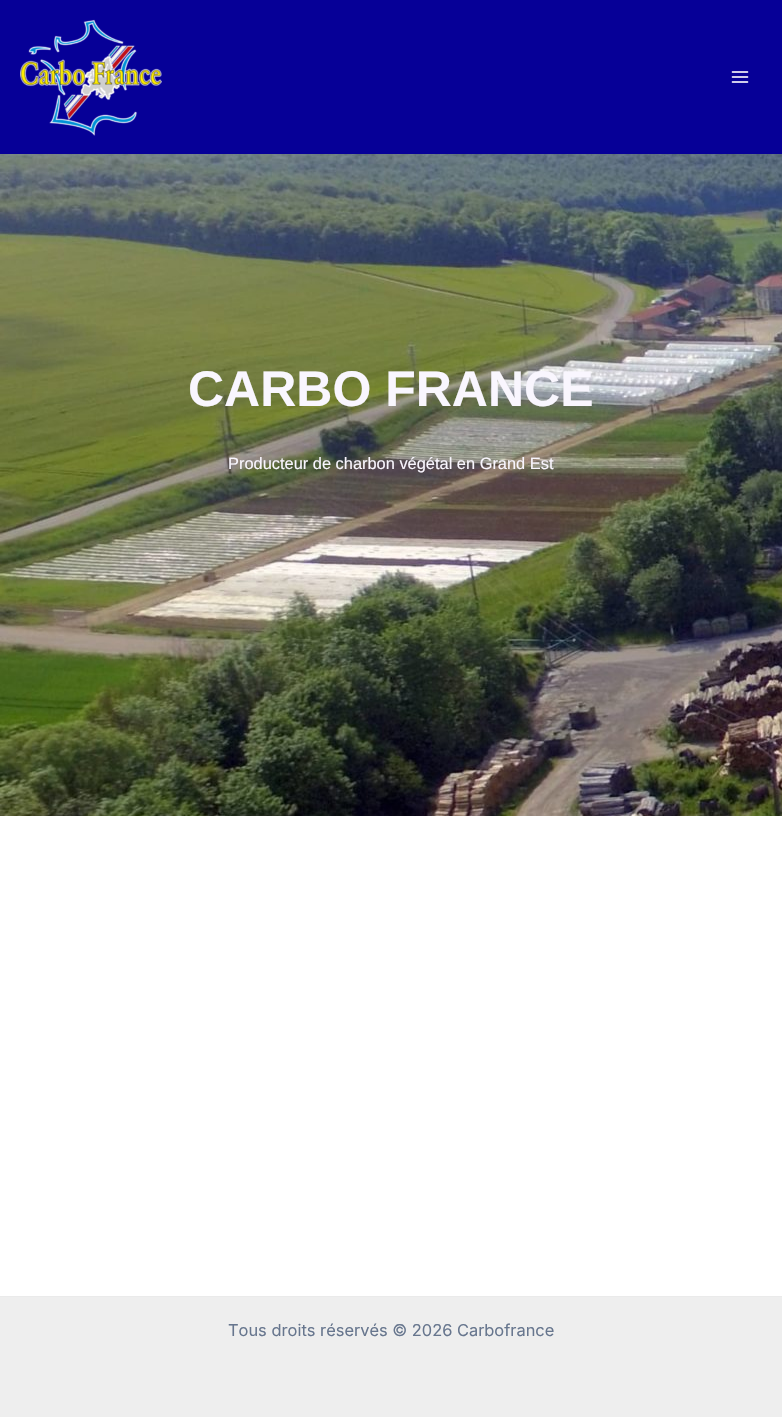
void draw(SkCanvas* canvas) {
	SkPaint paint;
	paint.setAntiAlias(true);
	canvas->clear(0xffffffff);
	paint.setColor(0xff060097);
	canvas->drawRect(SkRect::MakeXYWH(0, 0, 782, 154), paint);
	canvas->drawImageRect(SkImages::DeferredFromEncodedData(SkData::MakeFromFileName("img1.png")), SkRect::MakeXYWH(20, 19, 142, 117), SkSamplingOptions());
	canvas->drawImageRect(SkImages::DeferredFromEncodedData(SkData::MakeFromFileName("img2.png")), SkRect::MakeXYWH(731, 71, 18, 12), SkSamplingOptions());
	canvas->drawImageRect(SkImages::DeferredFromEncodedData(SkData::MakeFromFileName("img3.png")), SkRect::MakeXYWH(0, 154, 782, 662), SkSamplingOptions());
	SkFont f1(fontMgr->matchFamilyStyle("Liberation Sans", SkFontStyle::Bold()), 50);
	f1.setSubpixel(true);
	paint.setColor(0xfff9f6fe);
	canvas->drawString("CARBO FRANCE", 188, 406, f1, paint);
	SkFont f2(fontMgr->matchFamilyStyle("Liberation Sans", SkFontStyle::Normal()), 16.4);
	f2.setSubpixel(true);
	canvas->drawString("Producteur de charbon végétal en Grand Est", 228, 469, f2, paint);
	paint.setColor(0xffeeeeee);
	canvas->drawRect(SkRect::MakeXYWH(0, 1297, 782, 120), paint);
	paint.setColor(0xffeaeaea);
	canvas->drawRect(SkRect::MakeXYWH(0, 1296, 782, 1), paint);
	SkFont f3(fontMgr->matchFamilyStyle("Inter", SkFontStyle::Normal()), 16.4);
	f3.setSubpixel(true);
	paint.setColor(0xff67768e);
	canvas->drawString("Tous droits réservés © 2026 Carbofrance", 228, 1336, f3, paint);
}
